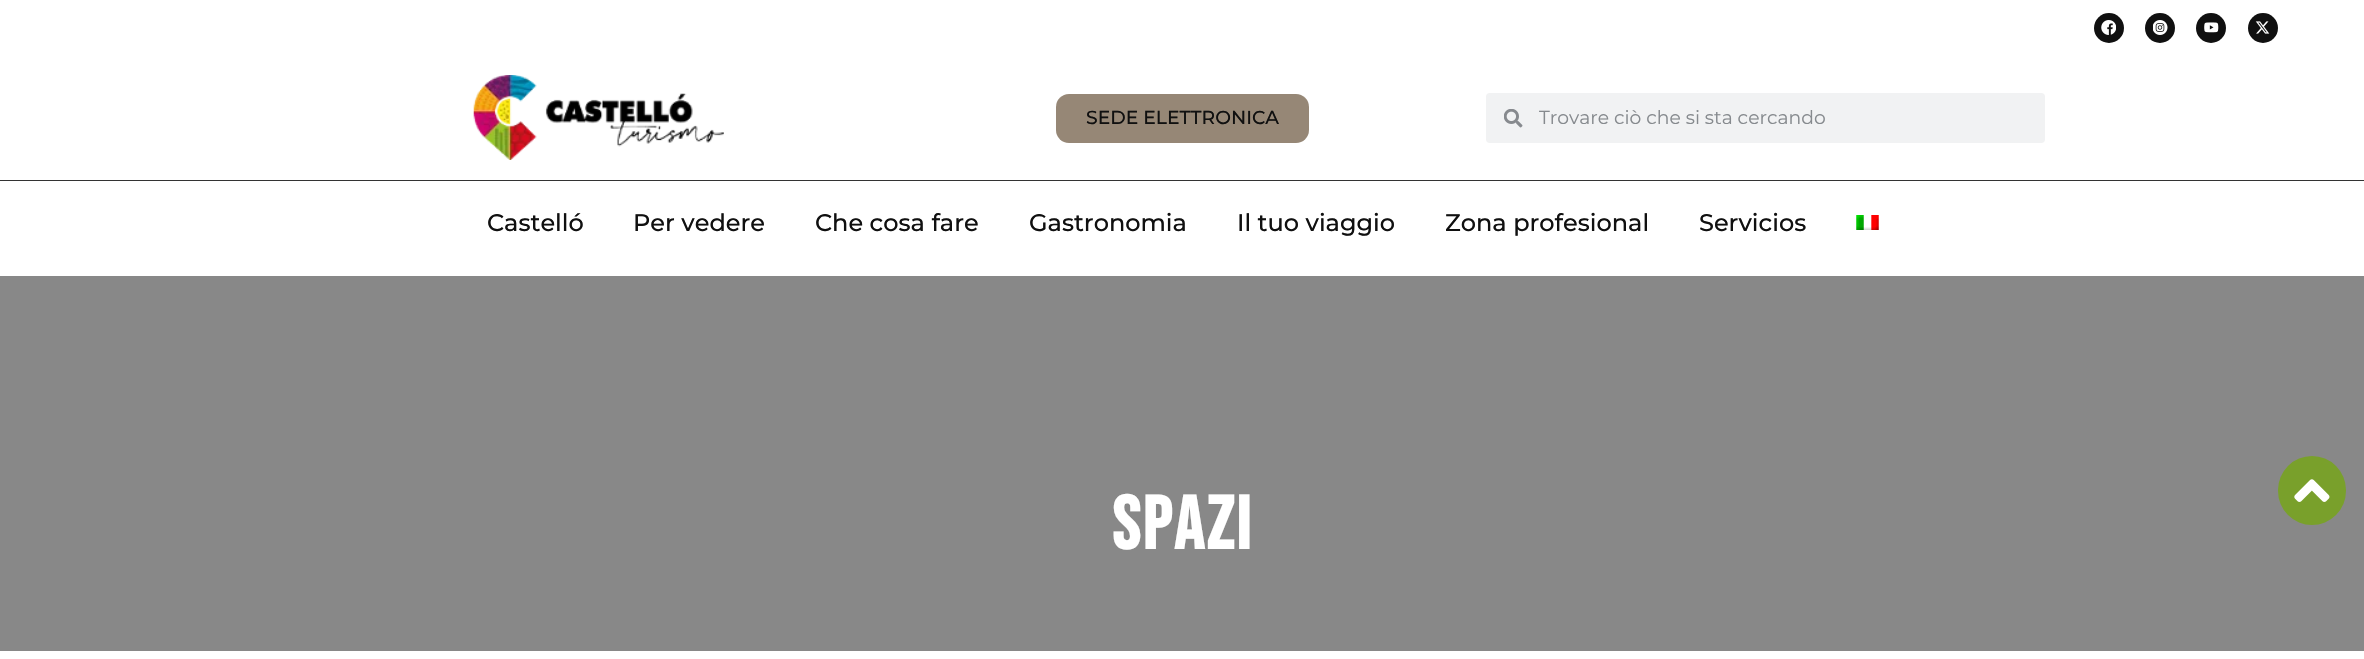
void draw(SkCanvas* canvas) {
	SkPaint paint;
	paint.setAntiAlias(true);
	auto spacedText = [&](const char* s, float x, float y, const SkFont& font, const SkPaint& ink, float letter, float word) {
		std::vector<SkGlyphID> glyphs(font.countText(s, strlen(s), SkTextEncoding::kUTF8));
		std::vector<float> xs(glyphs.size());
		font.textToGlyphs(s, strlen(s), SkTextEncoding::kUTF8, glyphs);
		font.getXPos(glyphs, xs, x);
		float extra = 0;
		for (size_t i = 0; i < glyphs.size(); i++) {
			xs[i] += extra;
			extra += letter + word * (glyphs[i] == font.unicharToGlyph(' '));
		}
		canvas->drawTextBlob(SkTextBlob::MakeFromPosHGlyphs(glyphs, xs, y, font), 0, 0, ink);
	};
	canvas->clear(0xffffffff);
	paint.setColor(0xff101010);
	canvas->drawCircle(2109, 28, 15, paint);
	canvas->drawImageRect(SkImages::DeferredFromEncodedData(SkData::MakeFromFileName("img1.png")), SkRect::MakeXYWH(2101, 20, 15, 15), SkSamplingOptions());
	canvas->drawCircle(2160, 28, 15, paint);
	canvas->drawImageRect(SkImages::DeferredFromEncodedData(SkData::MakeFromFileName("img2.png")), SkRect::MakeXYWH(2153, 20, 15, 15), SkSamplingOptions());
	canvas->drawCircle(2211, 28, 15, paint);
	canvas->drawImageRect(SkImages::DeferredFromEncodedData(SkData::MakeFromFileName("img3.png")), SkRect::MakeXYWH(2204, 22, 15, 11), SkSamplingOptions());
	canvas->drawCircle(2263, 28, 15, paint);
	canvas->drawImageRect(SkImages::DeferredFromEncodedData(SkData::MakeFromFileName("img4.png")), SkRect::MakeXYWH(2255, 21, 15, 13), SkSamplingOptions());
	canvas->drawImageRect(SkImages::DeferredFromEncodedData(SkData::MakeFromFileName("img5.png")), SkRect::MakeXYWH(473, 75, 251, 85), SkSamplingOptions());
	paint.setColor(0xff968776);
	canvas->drawRoundRect(SkRect::MakeXYWH(1056, 94, 253, 49), 13, 13, paint);
	SkFont f1(fontMgr->matchFamilyStyle("Montserrat", SkFontStyle(500, SkFontStyle::kNormal_Width, SkFontStyle::kUpright_Slant)), 18.75);
	f1.setSubpixel(true);
	paint.setColor(0xff101010);
	canvas->drawString("SEDE ELETTRONICA", 1086, 124, f1, paint);
	paint.setColor(0xfff1f2f3);
	canvas->drawRoundRect(SkRect::MakeXYWH(1486, 93, 559, 50), 4, 4, paint);
	canvas->drawImageRect(SkImages::DeferredFromEncodedData(SkData::MakeFromFileName("img6.png")), SkRect::MakeXYWH(1504, 109, 19, 19), SkSamplingOptions());
	SkFont f2(fontMgr->matchFamilyStyle("Montserrat", SkFontStyle::Normal()), 18.75);
	f2.setSubpixel(true);
	paint.setColor(0xff868a8e);
	canvas->drawString("Trovare ciò che si sta cercando", 1539, 124, f2, paint);
	paint.setColor(0xff333333);
	canvas->drawRect(SkRect::MakeXYWH(0, 180, 2364, 1), paint);
	SkFont f3(fontMgr->matchFamilyStyle("Montserrat", SkFontStyle(500, SkFontStyle::kNormal_Width, SkFontStyle::kUpright_Slant)), 24);
	f3.setSubpixel(true);
	paint.setColor(0xff101010);
	canvas->drawString("Castelló", 487, 231, f3, paint);
	canvas->drawString("Per vedere", 633, 231, f3, paint);
	canvas->drawString("Che cosa fare", 815, 231, f3, paint);
	canvas->drawString("Gastronomia", 1029, 231, f3, paint);
	canvas->drawString("Il tuo viaggio", 1237, 231, f3, paint);
	canvas->drawString("Zona profesional", 1445, 231, f3, paint);
	canvas->drawString("Servicios", 1699, 231, f3, paint);
	canvas->drawImageRect(SkImages::DeferredFromEncodedData(SkData::MakeFromFileName("img7.png")), SkRect::MakeXYWH(1856, 215, 23, 15), SkSamplingOptions());
	paint.setColor(0xff888888);
	canvas->drawRect(SkRect::MakeXYWH(0, 276, 2364, 375), paint);
	paint.setColor(0xff79a02b);
	canvas->drawRoundRect(SkRect::MakeXYWH(2278, 456, 68, 69), 34, 34, paint);
	canvas->drawImageRect(SkImages::DeferredFromEncodedData(SkData::MakeFromFileName("img8.png")), SkRect::MakeXYWH(2294, 479, 36, 23), SkSamplingOptions());
	SkFont f4(fontMgr->matchFamilyStyle("Bebas Neue", SkFontStyle::Bold()), 75);
	f4.setSubpixel(true);
	paint.setColor(0xffffffff);
	spacedText("SPAZI", 1112, 549, f4, paint, 2.5, 0);
}
